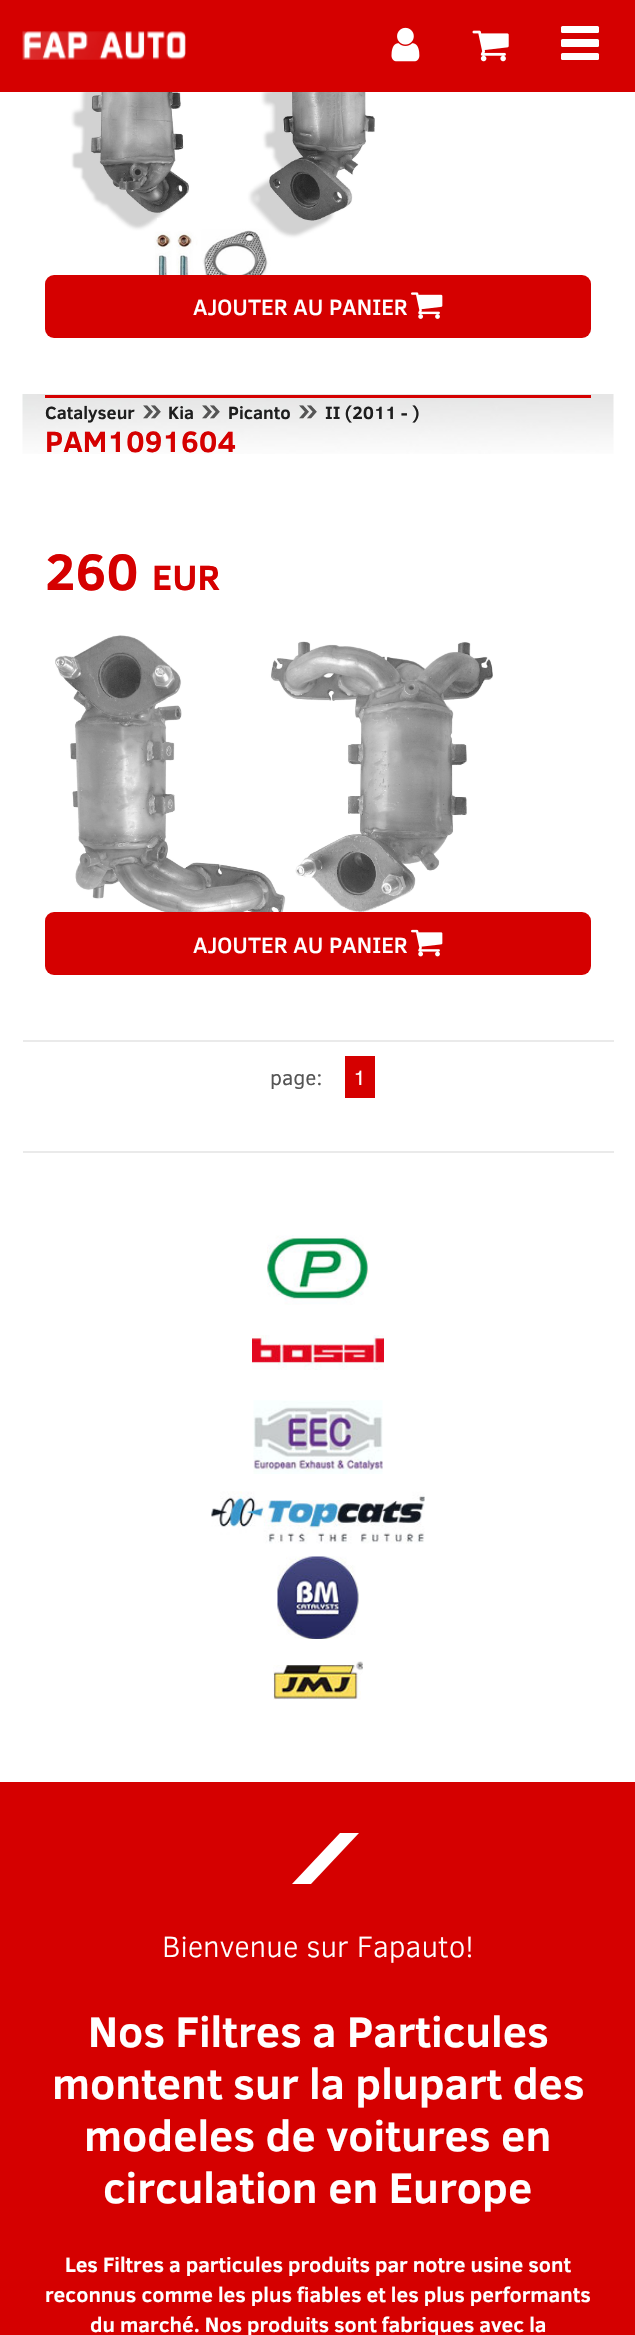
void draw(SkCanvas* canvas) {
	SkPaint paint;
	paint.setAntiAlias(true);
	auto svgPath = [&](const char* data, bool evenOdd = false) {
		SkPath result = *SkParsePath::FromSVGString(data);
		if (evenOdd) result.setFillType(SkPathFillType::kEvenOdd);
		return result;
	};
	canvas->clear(0xffffffff);
	paint.setColor(0xffd50000);
	canvas->drawRect(SkRect::MakeXYWH(0, 0, 635, 92), paint);
	canvas->drawImageRect(SkImages::DeferredFromEncodedData(SkData::MakeFromFileName("img1.png")), SkRect::MakeXYWH(22, 31, 164, 29), SkSamplingOptions());
	canvas->drawImageRect(SkImages::DeferredFromEncodedData(SkData::MakeFromFileName("img2.png")), SkRect::MakeXYWH(391, 27, 29, 35), SkSamplingOptions());
	canvas->drawImageRect(SkImages::DeferredFromEncodedData(SkData::MakeFromFileName("img3.png")), SkRect::MakeXYWH(472, 30, 37, 32), SkSamplingOptions());
	paint.setColor(0xffffffff);
	canvas->drawRoundRect(SkRect::MakeXYWH(561, 26, 38, 7), 1.5, 1.5, paint);
	canvas->drawRoundRect(SkRect::MakeXYWH(561, 39, 38, 8), 1.5, 1.5, paint);
	canvas->drawRoundRect(SkRect::MakeXYWH(561, 53, 38, 7), 1.5, 1.5, paint);
	canvas->drawImageRect(SkImages::DeferredFromEncodedData(SkData::MakeFromFileName("img4.png")), SkRect::MakeXYWH(55, 92, 322, 183), SkSamplingOptions());
	paint.setColor(0xffd50000);
	canvas->drawRoundRect(SkRect::MakeXYWH(45, 275, 546, 63), 9, 9, paint);
	SkFont f1(fontMgr->matchFamilyStyle("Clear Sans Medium", SkFontStyle(500, SkFontStyle::kNormal_Width, SkFontStyle::kUpright_Slant)), 22.5);
	f1.setSubpixel(true);
	paint.setColor(0xffffffff);
	canvas->drawString("AJOUTER AU PANIER", 193, 315, f1, paint);
	canvas->drawImageRect(SkImages::DeferredFromEncodedData(SkData::MakeFromFileName("img5.png")), SkRect::MakeXYWH(411, 292, 32, 27), SkSamplingOptions());
	canvas->drawImageRect(SkImages::DeferredFromEncodedData(SkData::MakeFromFileName("img6.png")), SkRect::MakeXYWH(22, 394, 592, 60), SkSamplingOptions());
	paint.setColor(0xffd50000);
	canvas->drawRect(SkRect::MakeXYWH(45, 395, 546, 3), paint);
	SkFont f2(fontMgr->matchFamilyStyle("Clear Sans", SkFontStyle::Bold()), 18);
	f2.setSubpixel(true);
	paint.setColor(0xff1e1e1e);
	canvas->drawString("Catalyseur", 45, 419, f2, paint);
	SkFont f3(fontMgr->matchFamilyStyle("Clear Sans", SkFontStyle::Bold()), 28);
	f3.setSubpixel(true);
	paint.setColor(0xff555555);
	canvas->drawString("»", 142, 419, f3, paint);
	paint.setColor(0xff1e1e1e);
	canvas->drawString("Kia", 168, 419, f2, paint);
	paint.setColor(0xff555555);
	canvas->drawString("»", 201, 419, f3, paint);
	paint.setColor(0xff1e1e1e);
	canvas->drawString("Picanto", 228, 419, f2, paint);
	paint.setColor(0xff555555);
	canvas->drawString("»", 298, 419, f3, paint);
	paint.setColor(0xff1e1e1e);
	canvas->drawString("II (2011 - )", 325, 419, f2, paint);
	SkFont f4(fontMgr->matchFamilyStyle("Clear Sans", SkFontStyle::Bold()), 30);
	f4.setSubpixel(true);
	paint.setColor(0xffd50000);
	canvas->drawString("PAM1091604", 45, 452, f4, paint);
	SkFont f5(fontMgr->matchFamilyStyle("Clear Sans", SkFontStyle::Bold()), 52);
	f5.setSubpixel(true);
	canvas->drawString("260", 45, 590, f5, paint);
	SkFont f6(fontMgr->matchFamilyStyle("Clear Sans", SkFontStyle::Bold()), 36);
	f6.setSubpixel(true);
	canvas->drawString("EUR", 152, 590, f6, paint);
	canvas->drawImageRect(SkImages::DeferredFromEncodedData(SkData::MakeFromFileName("img7.png")), SkRect::MakeXYWH(55, 635, 438, 277), SkSamplingOptions());
	canvas->drawRoundRect(SkRect::MakeXYWH(45, 912, 546, 63), 9, 9, paint);
	paint.setColor(0xffffffff);
	canvas->drawString("AJOUTER AU PANIER", 193, 953, f1, paint);
	canvas->drawImageRect(SkImages::DeferredFromEncodedData(SkData::MakeFromFileName("img8.png")), SkRect::MakeXYWH(411, 929, 32, 28), SkSamplingOptions());
	paint.setColor(0xffeaeaea);
	canvas->drawRect(SkRect::MakeXYWH(23, 1040, 591, 2), paint);
	canvas->drawRect(SkRect::MakeXYWH(23, 1151, 591, 2), paint);
	SkFont f7(fontMgr->matchFamilyStyle("Clear Sans", SkFontStyle::Normal()), 21);
	f7.setSubpixel(true);
	paint.setColor(0xff555555);
	canvas->drawString("page:", 270, 1085, f7, paint);
	paint.setColor(0xffd50000);
	canvas->drawRect(SkRect::MakeXYWH(345, 1056, 30, 42), paint);
	paint.setColor(0xffffffff);
	canvas->drawString("1", 353, 1085, f7, paint);
	canvas->drawImageRect(SkImages::DeferredFromEncodedData(SkData::MakeFromFileName("img9.png")), SkRect::MakeXYWH(267, 1235, 102, 70), SkSamplingOptions());
	canvas->drawImageRect(SkImages::DeferredFromEncodedData(SkData::MakeFromFileName("img10.png")), SkRect::MakeXYWH(252, 1335, 132, 35), SkSamplingOptions());
	canvas->drawImageRect(SkImages::DeferredFromEncodedData(SkData::MakeFromFileName("img11.png")), SkRect::MakeXYWH(253, 1400, 130, 74), SkSamplingOptions());
	canvas->drawImageRect(SkImages::DeferredFromEncodedData(SkData::MakeFromFileName("img12.png")), SkRect::MakeXYWH(211, 1491, 214, 53), SkSamplingOptions());
	canvas->drawImageRect(SkImages::DeferredFromEncodedData(SkData::MakeFromFileName("img13.png")), SkRect::MakeXYWH(277, 1556, 82, 83), SkSamplingOptions());
	canvas->drawImageRect(SkImages::DeferredFromEncodedData(SkData::MakeFromFileName("img14.png")), SkRect::MakeXYWH(273, 1661, 90, 39), SkSamplingOptions());
	paint.setColor(0xffd50000);
	canvas->drawRect(SkRect::MakeXYWH(0, 1782, 635, 553), paint);
	paint.setColor(0xffffffff);
	canvas->drawPath(svgPath("M359 1833H340L292 1884H311Z"), paint);
	SkFont f8(fontMgr->matchFamilyStyle("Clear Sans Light", SkFontStyle(300, SkFontStyle::kNormal_Width, SkFontStyle::kUpright_Slant)), 30);
	f8.setSubpixel(true);
	canvas->drawString("Bienvenue sur Fapauto!", 162, 1957, f8, paint);
	SkFont f9(fontMgr->matchFamilyStyle("Clear Sans", SkFontStyle::Bold()), 43.5);
	f9.setSubpixel(true);
	canvas->drawString("Nos Filtres a Particules", 88, 2047, f9, paint);
	canvas->drawString("montent sur la plupart des", 52, 2099, f9, paint);
	canvas->drawString("modeles de voitures en", 84, 2151, f9, paint);
	canvas->drawString("circulation en Europe", 103, 2203, f9, paint);
	SkFont f10(fontMgr->matchFamilyStyle("Clear Sans", SkFontStyle::Bold()), 21);
	f10.setSubpixel(true);
	canvas->drawString("Les Filtres a particules produits par notre usine sont", 65, 2272, f10, paint);
	canvas->drawString("reconnus comme les plus fiables et les plus performants", 45, 2302, f10, paint);
	canvas->drawString("du marché. Nos produits sont fabriques avec la", 90, 2332, f10, paint);
}
